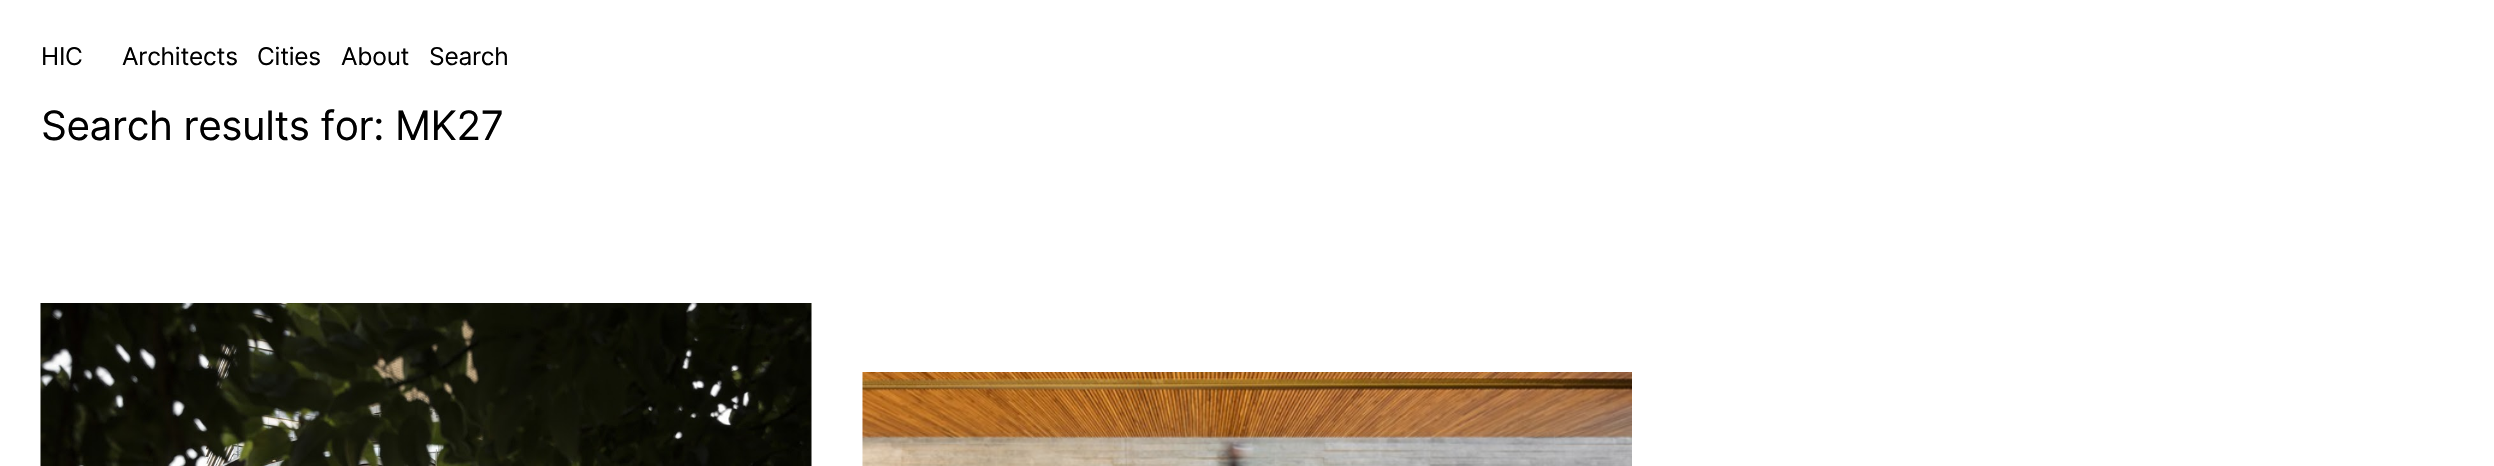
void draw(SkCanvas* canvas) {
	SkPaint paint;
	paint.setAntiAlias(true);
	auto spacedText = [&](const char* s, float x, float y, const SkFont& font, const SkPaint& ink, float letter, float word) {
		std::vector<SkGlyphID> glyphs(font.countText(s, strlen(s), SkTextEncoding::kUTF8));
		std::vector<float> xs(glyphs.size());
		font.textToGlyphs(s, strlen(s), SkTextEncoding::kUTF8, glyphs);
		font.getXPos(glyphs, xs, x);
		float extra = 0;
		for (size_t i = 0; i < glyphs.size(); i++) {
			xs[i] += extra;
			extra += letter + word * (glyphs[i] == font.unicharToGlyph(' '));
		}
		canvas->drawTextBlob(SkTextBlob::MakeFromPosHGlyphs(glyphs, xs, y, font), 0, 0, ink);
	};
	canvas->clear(0xffffffff);
	SkFont f1(fontMgr->matchFamilyStyle("Inter", SkFontStyle::Normal()), 24.5);
	f1.setSubpixel(true);
	paint.setColor(0xff000000);
	spacedText("HIC", 41, 65, f1, paint, -0.25, 0);
	spacedText("Architects", 122, 65, f1, paint, -0.25, 0);
	spacedText("Cities", 257, 65, f1, paint, -0.25, 0);
	spacedText("About", 341, 65, f1, paint, -0.25, 0);
	spacedText("Search", 429, 65, f1, paint, -0.25, 0);
	SkFont f2(fontMgr->matchFamilyStyle("Inter", SkFontStyle::Normal()), 40.5);
	f2.setSubpixel(true);
	spacedText("Search results for: MK27", 41, 140, f2, paint, -0.4, 0);
	canvas->drawImageRect(SkImages::DeferredFromEncodedData(SkData::MakeFromFileName("img1.png")), SkRect::MakeXYWH(40, 303, 772, 163), SkSamplingOptions());
	canvas->drawImageRect(SkImages::DeferredFromEncodedData(SkData::MakeFromFileName("img2.png")), SkRect::MakeXYWH(862, 372, 770, 94), SkSamplingOptions());
}
